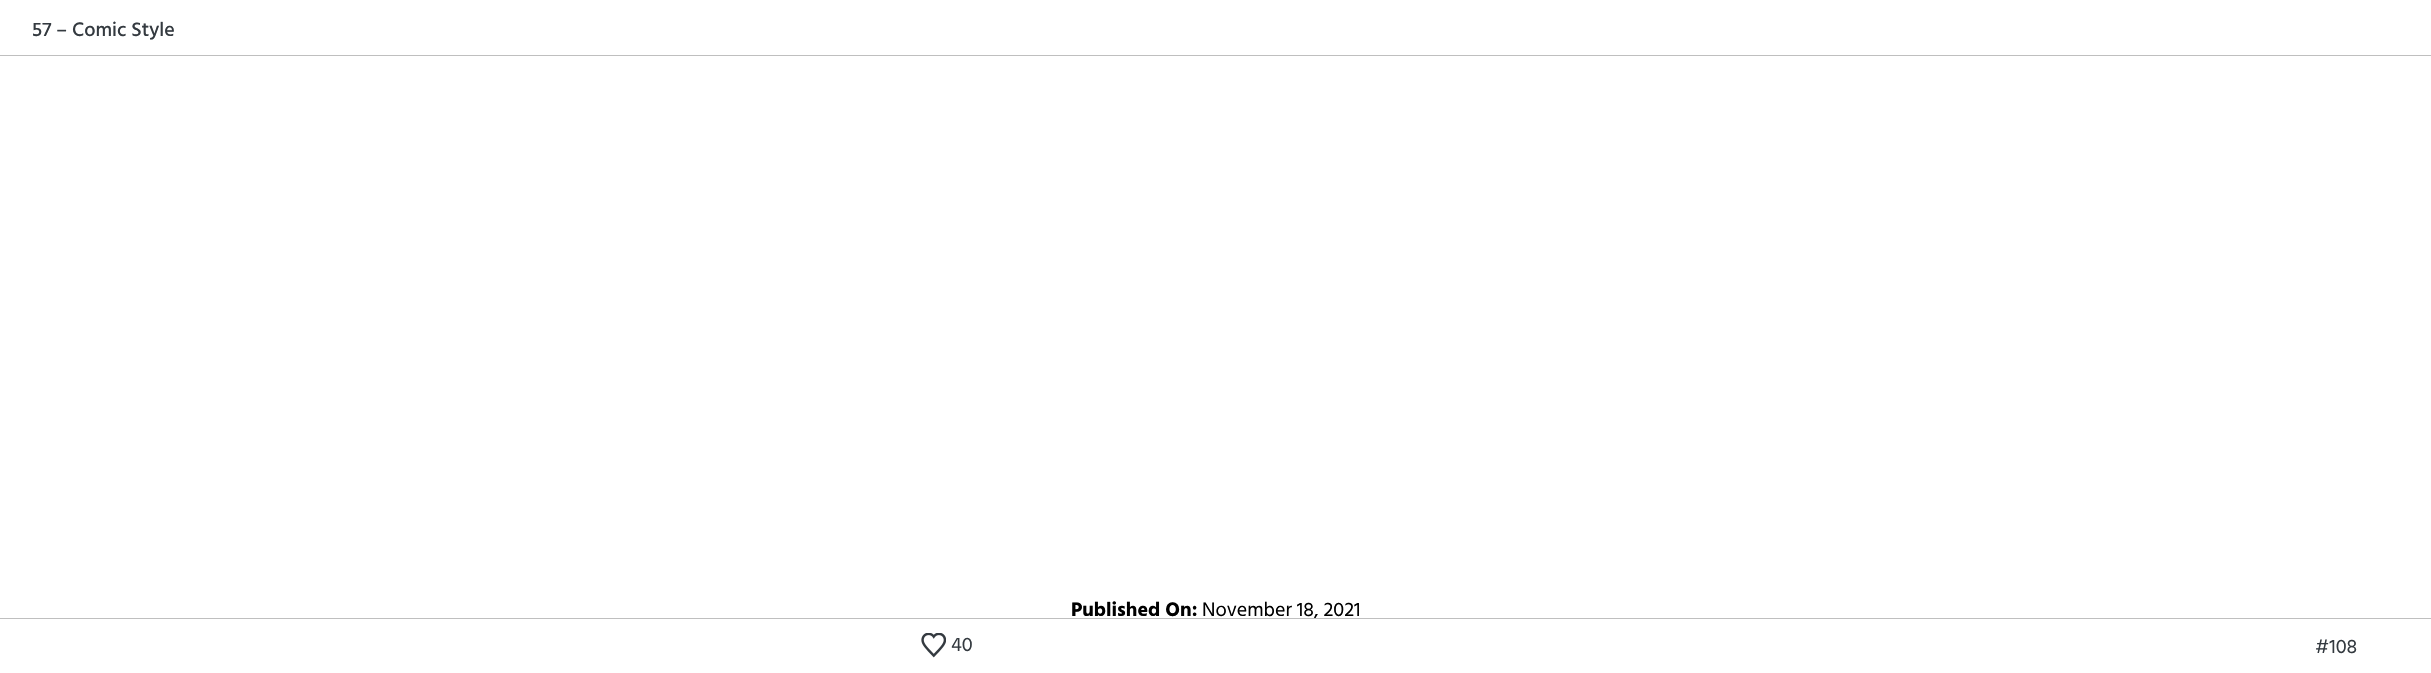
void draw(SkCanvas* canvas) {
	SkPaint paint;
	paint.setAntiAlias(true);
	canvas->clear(0xffffffff);
	paint.setColor(0xffbfbfbf);
	canvas->drawRect(SkRect::MakeXYWH(0, 55, 2431, 1), paint);
	SkFont f1(fontMgr->matchFamilyStyle("Hind", SkFontStyle(500, SkFontStyle::kNormal_Width, SkFontStyle::kUpright_Slant)), 20);
	f1.setSubpixel(true);
	paint.setColor(0xff343a40);
	canvas->drawString("57 – Comic Style", 32, 36, f1, paint);
	SkFont f2(fontMgr->matchFamilyStyle("Hind", SkFontStyle::Bold()), 20);
	f2.setSubpixel(true);
	paint.setColor(0xff000000);
	canvas->drawString("Published On:", 1071, 616, f2, paint);
	SkFont f3(fontMgr->matchFamilyStyle("Hind", SkFontStyle::Normal()), 20);
	f3.setSubpixel(true);
	canvas->drawString("November 18, 2021", 1202, 616, f3, paint);
	paint.setColor(0xffbfbfbf);
	canvas->drawRect(SkRect::MakeXYWH(0, 618, 2431, 1), paint);
	canvas->drawImageRect(SkImages::DeferredFromEncodedData(SkData::MakeFromFileName("img1.png")), SkRect::MakeXYWH(921, 633, 25, 25), SkSamplingOptions());
	paint.setColor(0xff343a40);
	canvas->drawString("40", 951, 651, f3, paint);
	canvas->drawString("#108", 2315, 653, f3, paint);
}
